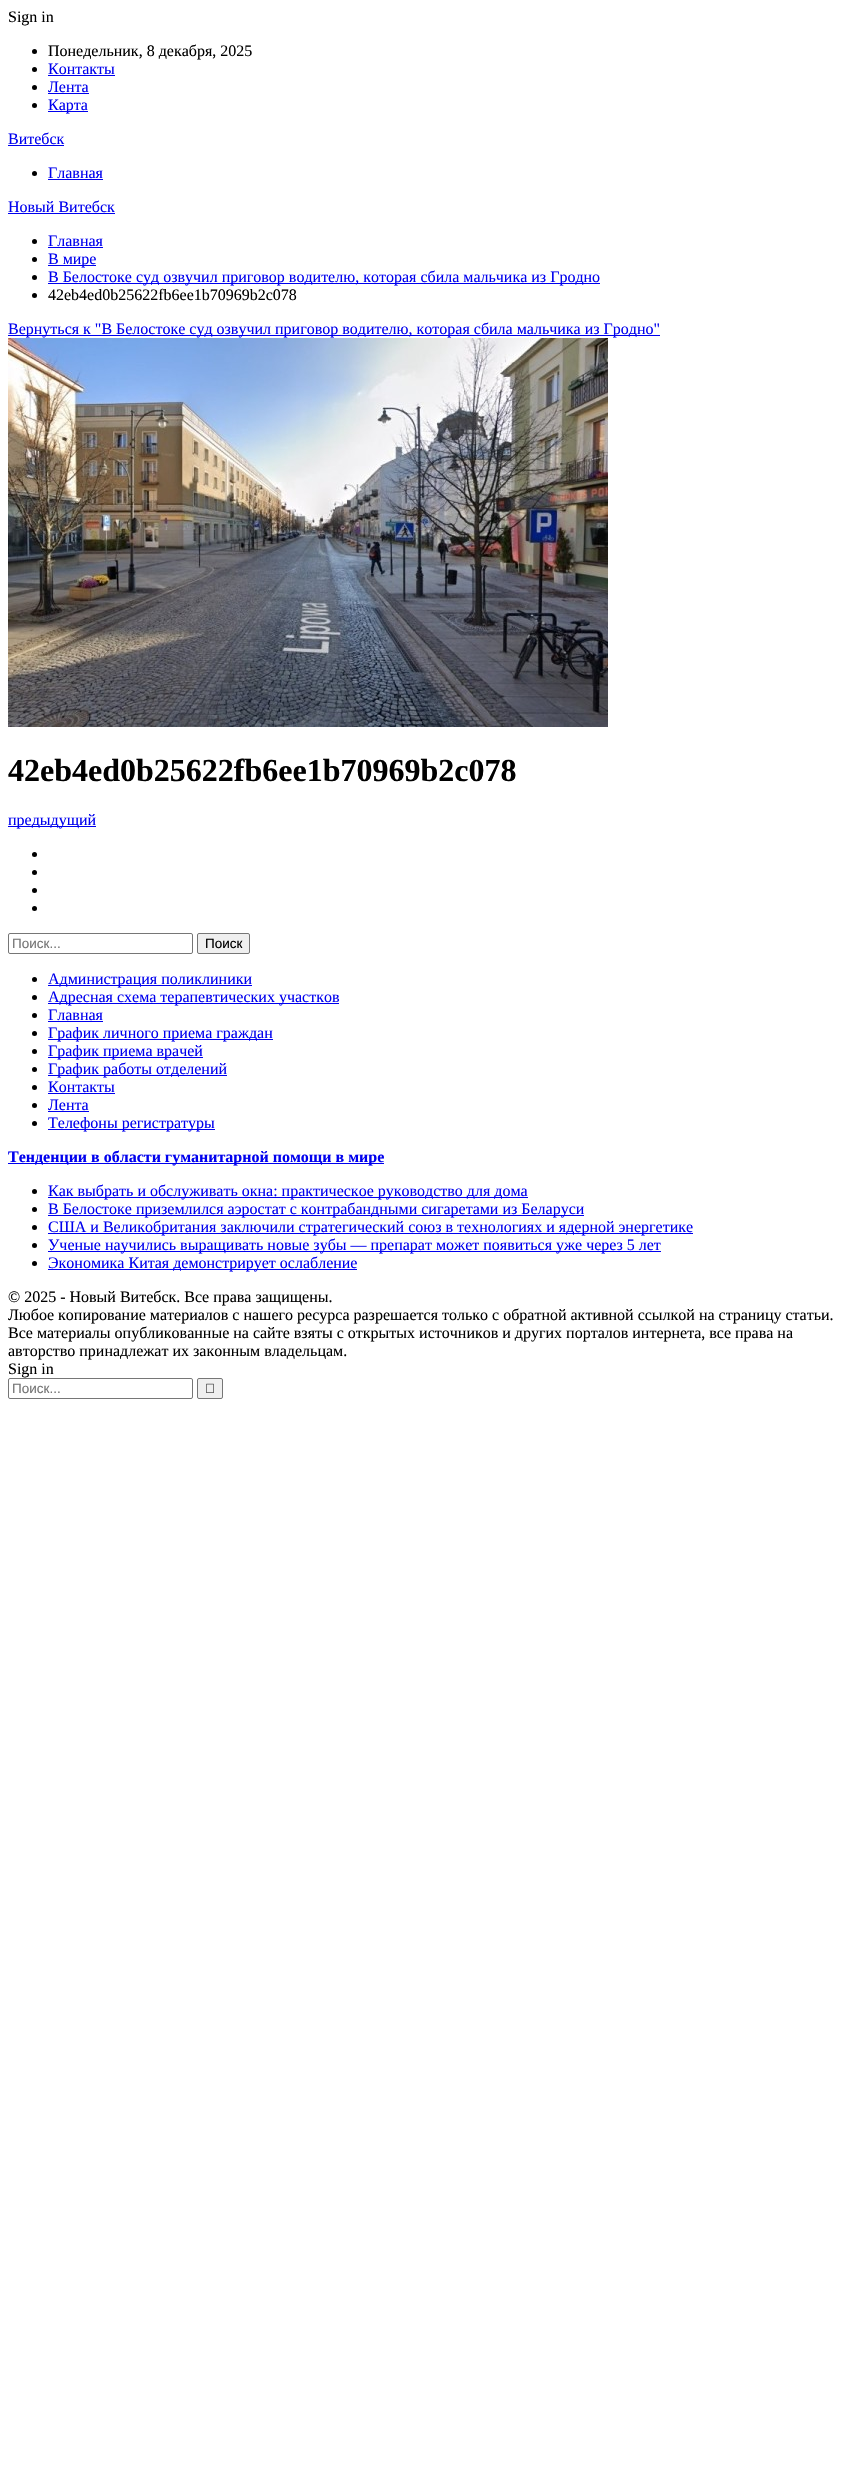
void draw(SkCanvas* canvas) {
	SkPaint paint;
	paint.setAntiAlias(true);
	canvas->clear(0xffffffff);
	SkFont f1(fontMgr->matchFamilyStyle("Liberation Serif", SkFontStyle::Normal()), 16);
	f1.setSubpixel(true);
	paint.setColor(0xff000000);
	canvas->drawString("Sign in", 8, 22, f1, paint);
	canvas->drawCircle(34.5, 51.5, 2.5, paint);
	canvas->drawString("Понедельник, 8 декабря, 2025", 48, 56, f1, paint);
	canvas->drawCircle(34.5, 69.5, 2.5, paint);
	paint.setColor(0xff0000ee);
	canvas->drawString("Контакты", 48, 74, f1, paint);
	canvas->drawRect(SkRect::MakeXYWH(48, 75, 67, 1), paint);
	paint.setColor(0xff000000);
	canvas->drawCircle(34.5, 87.5, 2.5, paint);
	paint.setColor(0xff0000ee);
	canvas->drawString("Лента", 48, 92, f1, paint);
	canvas->drawRect(SkRect::MakeXYWH(48, 93, 41, 1), paint);
	paint.setColor(0xff000000);
	canvas->drawCircle(34.5, 105.5, 2.5, paint);
	paint.setColor(0xff0000ee);
	canvas->drawRect(SkRect::MakeXYWH(48, 111, 40, 1), paint);
	canvas->drawString("Карта", 48, 110, f1, paint);
	canvas->drawString("Витебск", 8, 144, f1, paint);
	canvas->drawRect(SkRect::MakeXYWH(8, 145, 56, 1), paint);
	paint.setColor(0xff000000);
	canvas->drawCircle(34.5, 173.5, 2.5, paint);
	paint.setColor(0xff0000ee);
	canvas->drawString("Главная", 48, 178, f1, paint);
	canvas->drawRect(SkRect::MakeXYWH(48, 179, 55, 1), paint);
	canvas->drawString("Новый Витебск", 8, 212, f1, paint);
	canvas->drawRect(SkRect::MakeXYWH(8, 213, 107, 1), paint);
	paint.setColor(0xff000000);
	canvas->drawCircle(34.5, 241.5, 2.5, paint);
	paint.setColor(0xff0000ee);
	canvas->drawString("Главная", 48, 246, f1, paint);
	canvas->drawRect(SkRect::MakeXYWH(48, 247, 55, 1), paint);
	paint.setColor(0xff000000);
	canvas->drawCircle(34.5, 259.5, 2.5, paint);
	paint.setColor(0xff0000ee);
	canvas->drawRect(SkRect::MakeXYWH(48, 265, 48, 1), paint);
	canvas->drawString("В мире", 48, 264, f1, paint);
	paint.setColor(0xff000000);
	canvas->drawCircle(34.5, 277.5, 2.5, paint);
	paint.setColor(0xff0000ee);
	canvas->drawRect(SkRect::MakeXYWH(48, 283, 552, 1), paint);
	canvas->drawString("В Белостоке суд озвучил приговор водителю, которая сбила мальчика из Гродно", 48, 282, f1, paint);
	paint.setColor(0xff000000);
	canvas->drawCircle(34.5, 295.5, 2.5, paint);
	canvas->drawString("42eb4ed0b25622fb6ee1b70969b2c078", 48, 300, f1, paint);
	paint.setColor(0xff0000ee);
	canvas->drawRect(SkRect::MakeXYWH(8, 335, 652, 1), paint);
	canvas->drawString("Вернуться к \"В Белостоке суд озвучил приговор водителю, которая сбила мальчика из Гродно\"", 8, 334, f1, paint);
	canvas->drawImageRect(SkImages::DeferredFromEncodedData(SkData::MakeFromFileName("img1.png")), SkRect::MakeXYWH(8, 338, 600, 389), SkSamplingOptions());
	SkFont f2(fontMgr->matchFamilyStyle("Liberation Serif", SkFontStyle::Bold()), 32);
	f2.setSubpixel(true);
	paint.setColor(0xff000000);
	canvas->drawString("42eb4ed0b25622fb6ee1b70969b2c078", 8, 781, f2, paint);
	paint.setColor(0xff0000ee);
	canvas->drawRect(SkRect::MakeXYWH(8, 826, 88, 1), paint);
	canvas->drawString("предыдущий", 8, 825, f1, paint);
	paint.setColor(0xff000000);
	canvas->drawCircle(34.5, 854.5, 2.5, paint);
	canvas->drawCircle(34.5, 872.5, 2.5, paint);
	canvas->drawCircle(34.5, 890.5, 2.5, paint);
	canvas->drawCircle(34.5, 908.5, 2.5, paint);
	paint.setStroke(true);
	paint.setStrokeWidth(1);
	paint.setColor(0xff767676);
	canvas->drawRoundRect(SkRect::MakeXYWH(8.5, 933.5, 184, 20), 1.5, 1.5, paint);
	SkFont f3(fontMgr->matchFamilyStyle("Liberation Sans", SkFontStyle::Normal()), 13.5);
	f3.setSubpixel(true);
	paint.setStroke(false);
	paint.setColor(0xff757575);
	canvas->drawString("Поиск...", 12, 948, f3, paint);
	paint.setColor(0xffefefef);
	canvas->drawRoundRect(SkRect::MakeXYWH(197.5, 933.5, 52, 20), 1.5, 1.5, paint);
	paint.setStroke(true);
	paint.setColor(0xff767676);
	canvas->drawRoundRect(SkRect::MakeXYWH(197.5, 933.5, 52, 20), 1.5, 1.5, paint);
	paint.setStroke(false);
	paint.setColor(0xff000000);
	canvas->drawString("Поиск", 205, 948, f3, paint);
	canvas->drawCircle(34.5, 979.5, 2.5, paint);
	paint.setColor(0xff0000ee);
	canvas->drawRect(SkRect::MakeXYWH(48, 985, 204, 1), paint);
	canvas->drawString("Администрация поликлиники", 48, 984, f1, paint);
	paint.setColor(0xff000000);
	canvas->drawCircle(34.5, 997.5, 2.5, paint);
	paint.setColor(0xff0000ee);
	canvas->drawRect(SkRect::MakeXYWH(48, 1003, 291, 1), paint);
	canvas->drawString("Адресная схема терапевтических участков", 48, 1002, f1, paint);
	paint.setColor(0xff000000);
	canvas->drawCircle(34.5, 1015.5, 2.5, paint);
	paint.setColor(0xff0000ee);
	canvas->drawString("Главная", 48, 1020, f1, paint);
	canvas->drawRect(SkRect::MakeXYWH(48, 1021, 55, 1), paint);
	paint.setColor(0xff000000);
	canvas->drawCircle(34.5, 1033.5, 2.5, paint);
	paint.setColor(0xff0000ee);
	canvas->drawRect(SkRect::MakeXYWH(48, 1039, 225, 1), paint);
	canvas->drawString("График личного приема граждан", 48, 1038, f1, paint);
	paint.setColor(0xff000000);
	canvas->drawCircle(34.5, 1051.5, 2.5, paint);
	paint.setColor(0xff0000ee);
	canvas->drawRect(SkRect::MakeXYWH(48, 1057, 155, 1), paint);
	canvas->drawString("График приема врачей", 48, 1056, f1, paint);
	paint.setColor(0xff000000);
	canvas->drawCircle(34.5, 1069.5, 2.5, paint);
	paint.setColor(0xff0000ee);
	canvas->drawRect(SkRect::MakeXYWH(48, 1075, 179, 1), paint);
	canvas->drawString("График работы отделений", 48, 1074, f1, paint);
	paint.setColor(0xff000000);
	canvas->drawCircle(34.5, 1087.5, 2.5, paint);
	paint.setColor(0xff0000ee);
	canvas->drawString("Контакты", 48, 1092, f1, paint);
	canvas->drawRect(SkRect::MakeXYWH(48, 1093, 67, 1), paint);
	paint.setColor(0xff000000);
	canvas->drawCircle(34.5, 1105.5, 2.5, paint);
	paint.setColor(0xff0000ee);
	canvas->drawString("Лента", 48, 1110, f1, paint);
	canvas->drawRect(SkRect::MakeXYWH(48, 1111, 41, 1), paint);
	paint.setColor(0xff000000);
	canvas->drawCircle(34.5, 1123.5, 2.5, paint);
	paint.setColor(0xff0000ee);
	canvas->drawRect(SkRect::MakeXYWH(48, 1129, 167, 1), paint);
	canvas->drawString("Телефоны регистратуры", 48, 1128, f1, paint);
	canvas->drawRect(SkRect::MakeXYWH(8, 1163, 376, 1), paint);
	SkFont f4(fontMgr->matchFamilyStyle("Liberation Serif", SkFontStyle::Bold()), 16);
	f4.setSubpixel(true);
	canvas->drawString("Тенденции в области гуманитарной помощи в мире", 8, 1162, f4, paint);
	paint.setColor(0xff000000);
	canvas->drawCircle(34.5, 1191.5, 2.5, paint);
	paint.setColor(0xff0000ee);
	canvas->drawRect(SkRect::MakeXYWH(48, 1197, 480, 1), paint);
	canvas->drawString("Как выбрать и обслуживать окна: практическое руководство для дома", 48, 1196, f1, paint);
	paint.setColor(0xff000000);
	canvas->drawCircle(34.5, 1209.5, 2.5, paint);
	paint.setColor(0xff0000ee);
	canvas->drawRect(SkRect::MakeXYWH(48, 1215, 536, 1), paint);
	canvas->drawString("В Белостоке приземлился аэростат с контрабандными сигаретами из Беларуси", 48, 1214, f1, paint);
	paint.setColor(0xff000000);
	canvas->drawCircle(34.5, 1227.5, 2.5, paint);
	paint.setColor(0xff0000ee);
	canvas->drawRect(SkRect::MakeXYWH(48, 1233, 645, 1), paint);
	canvas->drawString("США и Великобритания заключили стратегический союз в технологиях и ядерной энергетике", 48, 1232, f1, paint);
	paint.setColor(0xff000000);
	canvas->drawCircle(34.5, 1245.5, 2.5, paint);
	paint.setColor(0xff0000ee);
	canvas->drawRect(SkRect::MakeXYWH(48, 1251, 613, 1), paint);
	canvas->drawString("Ученые научились выращивать новые зубы — препарат может появиться уже через 5 лет", 48, 1250, f1, paint);
	paint.setColor(0xff000000);
	canvas->drawCircle(34.5, 1263.5, 2.5, paint);
	paint.setColor(0xff0000ee);
	canvas->drawRect(SkRect::MakeXYWH(48, 1269, 309, 1), paint);
	canvas->drawString("Экономика Китая демонстрирует ослабление", 48, 1268, f1, paint);
	paint.setColor(0xff000000);
	canvas->drawString("© 2025 - Новый Витебск. Все права защищены.", 8, 1302, f1, paint);
	canvas->drawString("Любое копирование материалов с нашего ресурса разрешается только с обратной активной ссылкой на страницу статьи.", 8, 1320, f1, paint);
	canvas->drawString("Все материалы опубликованные на сайте взяты с открытых источников и других порталов интернета, все права на", 8, 1338, f1, paint);
	canvas->drawString("авторство принадлежат их законным владельцам.", 8, 1356, f1, paint);
	canvas->drawString("Sign in", 8, 1374, f1, paint);
	paint.setStroke(true);
	paint.setColor(0xff767676);
	canvas->drawRoundRect(SkRect::MakeXYWH(8.5, 1378.5, 184, 20), 1.5, 1.5, paint);
	paint.setStroke(false);
	paint.setColor(0xff757575);
	canvas->drawString("Поиск...", 12, 1393, f3, paint);
	paint.setColor(0xffefefef);
	canvas->drawRoundRect(SkRect::MakeXYWH(197.5, 1378.5, 25, 20), 1.5, 1.5, paint);
	paint.setStroke(true);
	paint.setColor(0xff767676);
	canvas->drawRoundRect(SkRect::MakeXYWH(197.5, 1378.5, 25, 20), 1.5, 1.5, paint);
	canvas->drawImageRect(SkImages::DeferredFromEncodedData(SkData::MakeFromFileName("img2.png")), SkRect::MakeXYWH(206, 1383, 8, 10), SkSamplingOptions());
}
